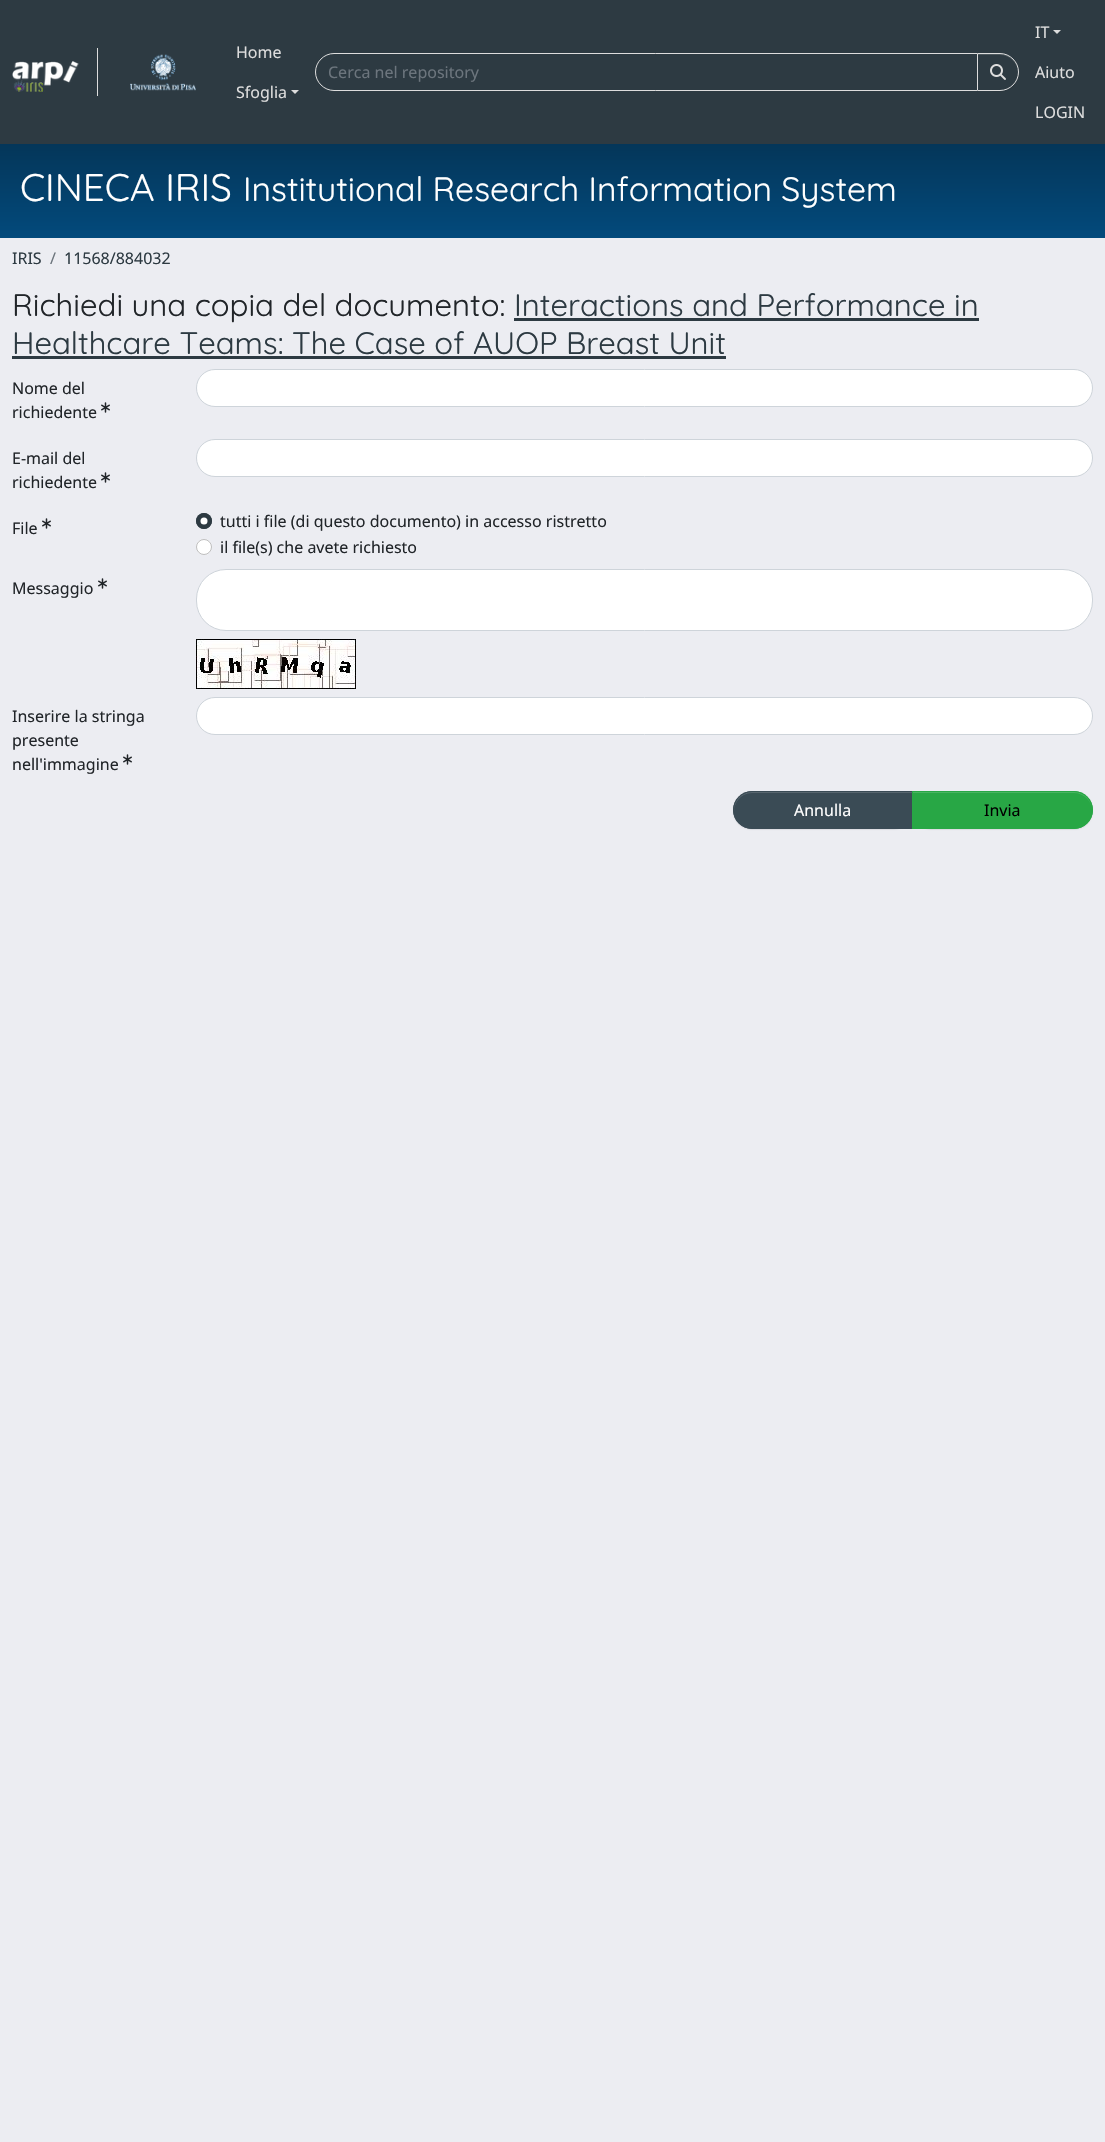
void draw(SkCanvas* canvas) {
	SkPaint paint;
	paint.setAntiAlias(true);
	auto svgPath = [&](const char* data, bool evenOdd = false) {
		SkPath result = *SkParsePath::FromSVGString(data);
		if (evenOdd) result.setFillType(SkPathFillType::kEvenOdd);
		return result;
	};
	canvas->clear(0xffecedf2);
	paint.setColor(0xff2d3a42);
	canvas->drawRect(SkRect::MakeXYWH(0, 0, 1105, 144), paint);
	paint.setColor(0xffdddddd);
	canvas->drawRect(SkRect::MakeXYWH(97, 48, 1, 48), paint);
	canvas->drawImageRect(SkImages::DeferredFromEncodedData(SkData::MakeFromFileName("img1.png")), SkRect::MakeXYWH(12, 61, 67, 31), SkSamplingOptions());
	canvas->drawImageRect(SkImages::DeferredFromEncodedData(SkData::MakeFromFileName("img2.png")), SkRect::MakeXYWH(130, 54, 66, 37), SkSamplingOptions());
	SkFont f1(fontMgr->matchFamilyStyle("Noto Sans", SkFontStyle::Normal()), 16);
	f1.setSubpixel(true);
	canvas->drawString("Home", 236, 58, f1, paint);
	canvas->drawString("Sfoglia", 236, 98, f1, paint);
	canvas->drawPath(svgPath("M291 90H299L295 94Z"), paint);
	paint.setStroke(true);
	paint.setStrokeWidth(1);
	canvas->drawPath(svgPath("M334 53.5H977.5V90.5H334C324 90.5 315.5 82 315.5 72C315.5 62 324 53.5 334 53.5Z"), paint);
	paint.setStroke(false);
	paint.setColor(0xff6c757d);
	canvas->drawString("Cerca nel repository", 328, 78, f1, paint);
	paint.setColor(0x12000000);
	paint.setMaskFilter(SkMaskFilter::MakeBlur(kNormal_SkBlurStyle, 0.5));
	canvas->drawRoundRect(SkRect::MakeXYWH(977, 54, 42, 38), 19, 19, paint);
	paint.setMaskFilter(nullptr);
	paint.setColor(0xff2d3a42);
	canvas->drawPath(svgPath("M977 53H1000C1010.5 53 1019 61.5 1019 72C1019 82.5 1010.5 91 1000 91H977Z"), paint);
	paint.setColor(0xff4d585e);
	canvas->drawPath(svgPath("M978 55H1000C1010 55 1018 63 1018 72C1018 64 1012 56 1004 54H978Z"), paint);
	paint.setStroke(true);
	paint.setColor(0xffdddddd);
	canvas->drawPath(svgPath("M977.5 53.5H1000C1010 53.5 1018.5 62 1018.5 72C1018.5 82 1010 90.5 1000 90.5H977.5Z"), paint);
	canvas->drawImageRect(SkImages::DeferredFromEncodedData(SkData::MakeFromFileName("img3.png")), SkRect::MakeXYWH(990, 64, 16, 16), SkSamplingOptions());
	paint.setStroke(false);
	canvas->drawString("IT", 1035, 38, f1, paint);
	canvas->drawPath(svgPath("M1053 30H1061L1057 34Z"), paint);
	canvas->drawString("Aiuto", 1035, 78, f1, paint);
	canvas->drawString("LOGIN", 1035, 118, f1, paint);
	{
		const SkColor colors[] = {0xff043659, 0xff034a7c};
		const float stops[] = {0, 1};
		const SkPoint ends[] = {{553, 144}, {553, 238}};
		paint.setShader(SkGradientShader::MakeLinear(ends, colors, stops, 2, SkTileMode::kClamp));
		paint.setAlpha(255);
	}
	canvas->drawRect(SkRect::MakeXYWH(0, 144, 1105, 94), paint);
	SkFont f2(fontMgr->matchFamilyStyle("Quicksand", SkFontStyle::Normal()), 38.5);
	f2.setSubpixel(true);
	paint.setShader(nullptr);
	paint.setColor(0xffffffff);
	canvas->drawString("CINECA IRIS", 20, 201, f2, paint);
	SkFont f3(fontMgr->matchFamilyStyle("Quicksand", SkFontStyle::Normal()), 33.75);
	f3.setSubpixel(true);
	canvas->drawString("Institutional Research Information System", 243, 201, f3, paint);
	paint.setColor(0xff2d3a42);
	canvas->drawString("IRIS", 12, 264, f1, paint);
	paint.setColor(0xff6c757d);
	canvas->drawString("/", 50, 264, f1, paint);
	paint.setColor(0xff2d3a42);
	canvas->drawString("11568/884032", 64, 264, f1, paint);
	SkFont f4(fontMgr->matchFamilyStyle("Quicksand", SkFontStyle::Normal()), 31.1);
	f4.setSubpixel(true);
	paint.setColor(0xff212529);
	canvas->drawString("Richiedi una copia del documento:", 12, 316, f4, paint);
	paint.setColor(0xff2d3a42);
	canvas->drawString("Interactions and Performance in", 514, 316, f4, paint);
	canvas->drawRect(SkRect::MakeXYWH(514, 318, 465, 3), paint);
	canvas->drawString("Healthcare Teams: The Case of AUOP Breast Unit", 12, 354, f4, paint);
	canvas->drawRect(SkRect::MakeXYWH(12, 356, 714, 3), paint);
	paint.setColor(0xff212529);
	canvas->drawString("Nome del", 12, 394, f1, paint);
	canvas->drawString("richiedente", 12, 418, f1, paint);
	canvas->drawImageRect(SkImages::DeferredFromEncodedData(SkData::MakeFromFileName("img4.png")), SkRect::MakeXYWH(101, 402, 9, 11), SkSamplingOptions());
	paint.setColor(0xffffffff);
	canvas->drawRoundRect(SkRect::MakeXYWH(196.5, 369.5, 896, 37), 18.5, 18.5, paint);
	paint.setStroke(true);
	paint.setColor(0xffced4da);
	canvas->drawRoundRect(SkRect::MakeXYWH(196.5, 369.5, 896, 37), 18.5, 18.5, paint);
	paint.setStroke(false);
	paint.setColor(0xff212529);
	canvas->drawString("E-mail del", 12, 464, f1, paint);
	canvas->drawString("richiedente", 12, 488, f1, paint);
	canvas->drawImageRect(SkImages::DeferredFromEncodedData(SkData::MakeFromFileName("img4.png")), SkRect::MakeXYWH(101, 472, 9, 11), SkSamplingOptions());
	paint.setColor(0xffffffff);
	canvas->drawRoundRect(SkRect::MakeXYWH(196.5, 439.5, 896, 37), 18.5, 18.5, paint);
	paint.setStroke(true);
	paint.setColor(0xffced4da);
	canvas->drawRoundRect(SkRect::MakeXYWH(196.5, 439.5, 896, 37), 18.5, 18.5, paint);
	paint.setStroke(false);
	paint.setColor(0xff212529);
	canvas->drawString("File", 12, 534, f1, paint);
	canvas->drawImageRect(SkImages::DeferredFromEncodedData(SkData::MakeFromFileName("img4.png")), SkRect::MakeXYWH(42, 518, 9, 11), SkSamplingOptions());
	paint.setColor(0xff2d3a42);
	canvas->drawCircle(204, 521, 8, paint);
	paint.setColor(0xffffffff);
	canvas->drawCircle(204, 521, 3.5, paint);
	paint.setStroke(true);
	paint.setColor(0xff2d3a42);
	canvas->drawCircle(204, 521, 7.5, paint);
	paint.setStroke(false);
	paint.setColor(0xff212529);
	canvas->drawString("tutti i file (di questo documento) in accesso ristretto", 220, 527, f1, paint);
	paint.setColor(0xffffffff);
	canvas->drawCircle(204, 547, 8, paint);
	paint.setStroke(true);
	paint.setColor(0x40000000);
	canvas->drawCircle(204, 547, 7.5, paint);
	paint.setStroke(false);
	paint.setColor(0xff212529);
	canvas->drawString("il file(s) che avete richiesto", 220, 553, f1, paint);
	canvas->drawString("Messaggio", 12, 594, f1, paint);
	canvas->drawImageRect(SkImages::DeferredFromEncodedData(SkData::MakeFromFileName("img4.png")), SkRect::MakeXYWH(98, 578, 9, 11), SkSamplingOptions());
	paint.setColor(0xffffffff);
	canvas->drawRoundRect(SkRect::MakeXYWH(196.5, 569.5, 896, 61), 29.5, 29.5, paint);
	paint.setStroke(true);
	paint.setColor(0xffced4da);
	canvas->drawRoundRect(SkRect::MakeXYWH(196.5, 569.5, 896, 61), 29.5, 29.5, paint);
	canvas->drawImageRect(SkImages::DeferredFromEncodedData(SkData::MakeFromFileName("img5.png")), SkRect::MakeXYWH(196, 639, 160, 50), SkSamplingOptions());
	paint.setStroke(false);
	paint.setColor(0xff212529);
	canvas->drawString("Inserire la stringa", 12, 722, f1, paint);
	canvas->drawString("presente", 12, 746, f1, paint);
	canvas->drawString("nell'immagine", 12, 770, f1, paint);
	canvas->drawImageRect(SkImages::DeferredFromEncodedData(SkData::MakeFromFileName("img4.png")), SkRect::MakeXYWH(123, 754, 9, 11), SkSamplingOptions());
	paint.setColor(0xffffffff);
	canvas->drawRoundRect(SkRect::MakeXYWH(196.5, 697.5, 896, 37), 18.5, 18.5, paint);
	paint.setStroke(true);
	paint.setColor(0xffced4da);
	canvas->drawRoundRect(SkRect::MakeXYWH(196.5, 697.5, 896, 37), 18.5, 18.5, paint);
	paint.setStroke(false);
	paint.setColor(0x12000000);
	paint.setMaskFilter(SkMaskFilter::MakeBlur(kNormal_SkBlurStyle, 0.5));
	canvas->drawRoundRect(SkRect::MakeXYWH(733, 792, 180, 38), 19, 19, paint);
	paint.setMaskFilter(nullptr);
	paint.setColor(0xff3a4b55);
	canvas->drawPath(svgPath("M752 791H913V829H752C741.5 829 733 820.5 733 810C733 799.5 741.5 791 752 791Z"), paint);
	paint.setColor(0xff58666f);
	canvas->drawPath(svgPath("M752 793H912V792H752C742 792 734 800 734 810V812C734 803 740 793 752 793Z"), paint);
	paint.setStroke(true);
	paint.setColor(0xff3a4b55);
	canvas->drawPath(svgPath("M752 791.5H912.5V828.5H752C742 828.5 733.5 820 733.5 810C733.5 800 742 791.5 752 791.5Z"), paint);
	paint.setStroke(false);
	paint.setColor(0xffffffff);
	canvas->drawString("Annulla", 794, 816, f1, paint);
	paint.setColor(0x12000000);
	paint.setMaskFilter(SkMaskFilter::MakeBlur(kNormal_SkBlurStyle, 0.5));
	canvas->drawRoundRect(SkRect::MakeXYWH(912, 792, 181, 38), 19, 19, paint);
	paint.setMaskFilter(nullptr);
	paint.setColor(0xff28a745);
	canvas->drawPath(svgPath("M912 791H1074C1084.5 791 1093 799.5 1093 810C1093 820.5 1084.5 829 1074 829H912Z"), paint);
	paint.setColor(0xff48b461);
	canvas->drawPath(svgPath("M913 793H1074C1084 793 1092 801 1092 810C1092 800 1084 792 1074 792H913Z"), paint);
	paint.setStroke(true);
	paint.setColor(0xff28a745);
	canvas->drawPath(svgPath("M912.5 791.5H1074C1084 791.5 1092.5 800 1092.5 810C1092.5 820 1084 828.5 1074 828.5H912.5Z"), paint);
	paint.setStroke(false);
	paint.setColor(0xff000000);
	canvas->drawString("Invia", 984, 816, f1, paint);
}
